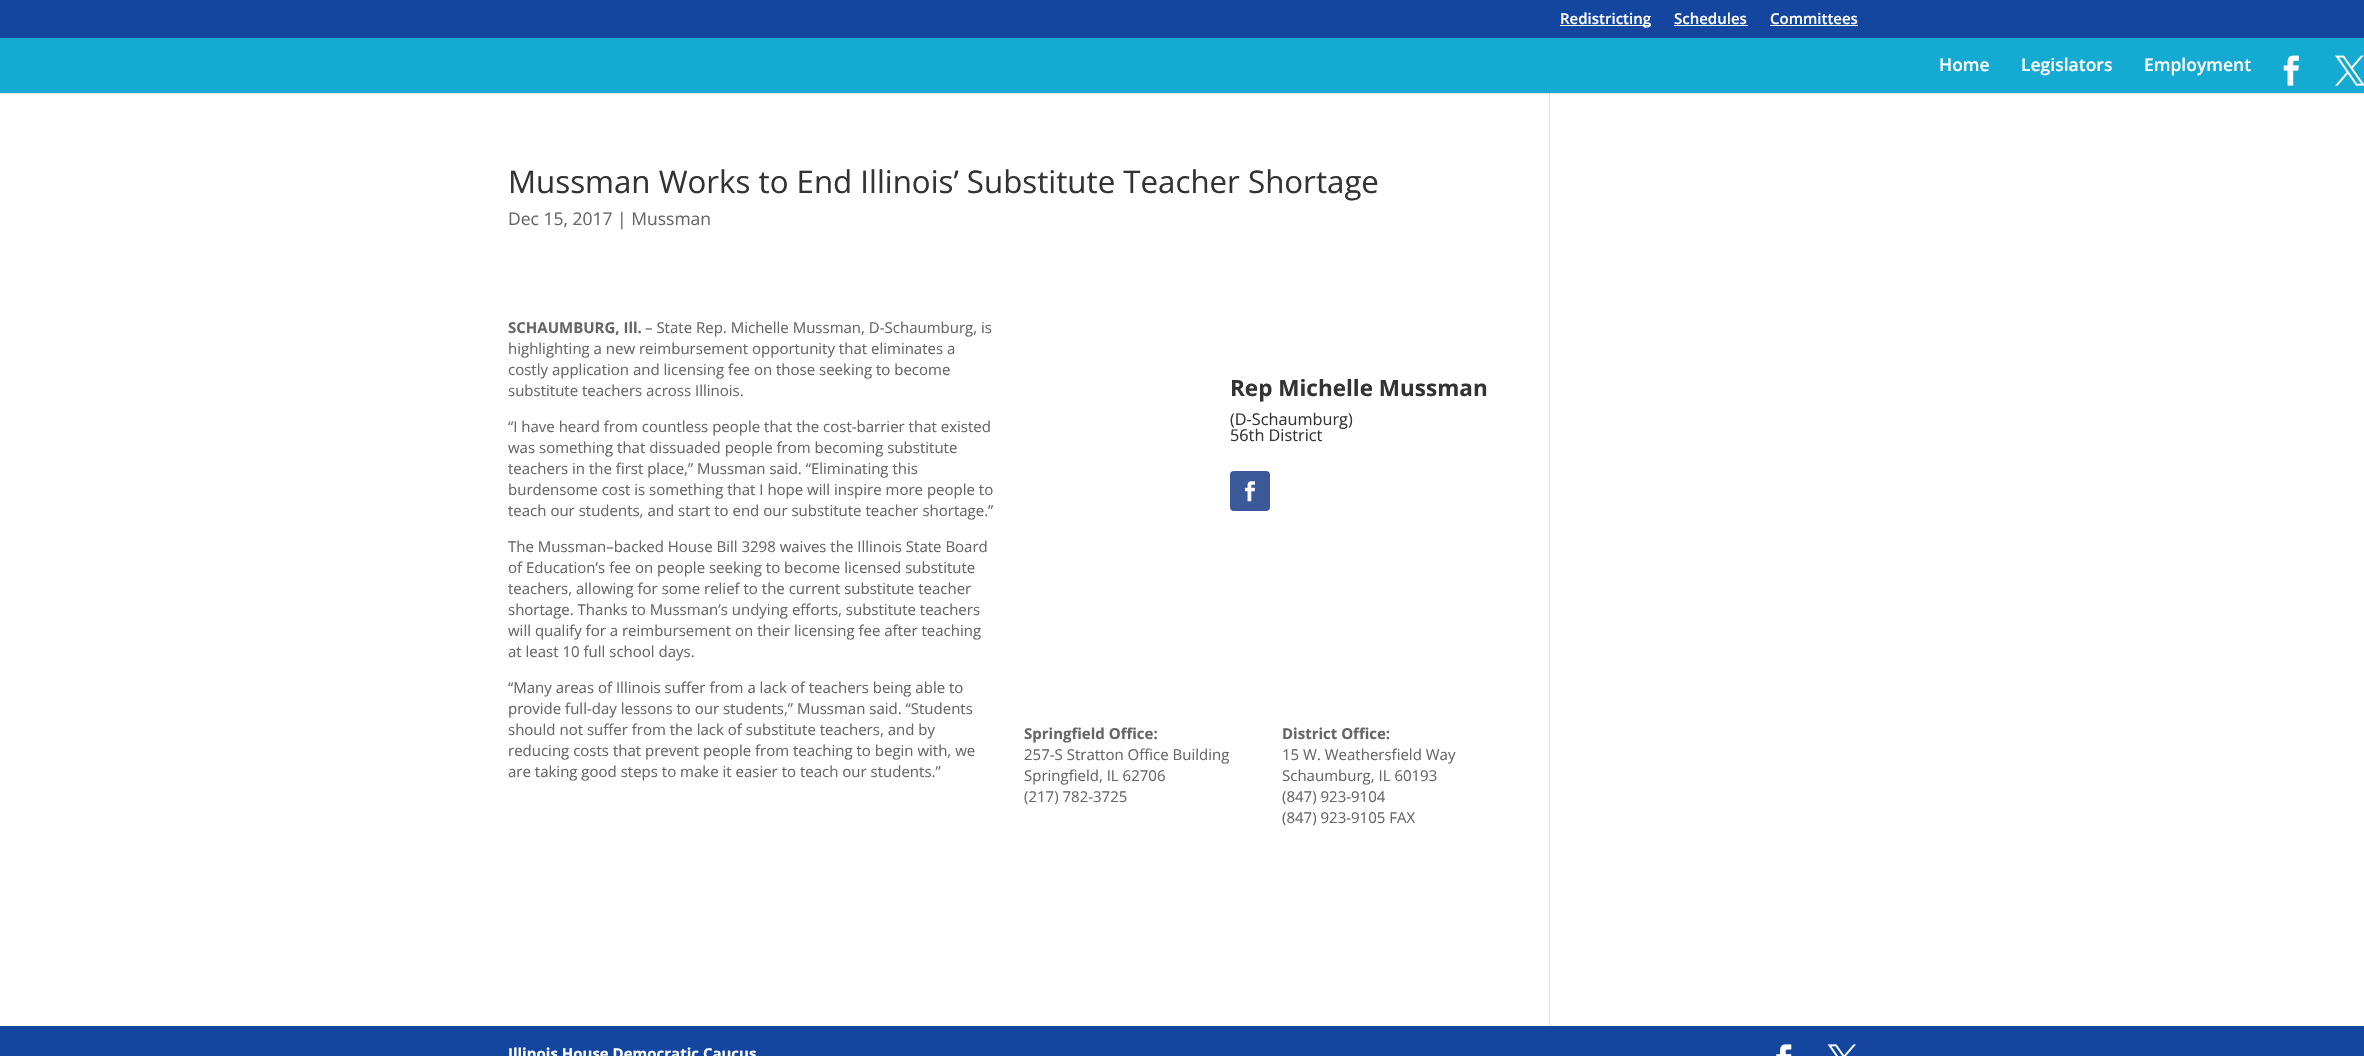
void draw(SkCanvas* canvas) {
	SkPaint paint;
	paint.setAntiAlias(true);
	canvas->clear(0xffffffff);
	paint.setColor(0xffe6e6e6);
	canvas->drawRect(SkRect::MakeXYWH(0, 93, 2364, 1), paint);
	paint.setColor(0xff1446a0);
	canvas->drawRect(SkRect::MakeXYWH(0, 0, 2364, 38), paint);
	paint.setColor(0xffffffff);
	canvas->drawRect(SkRect::MakeXYWH(1560, 25, 91, 1), paint);
	SkFont f1(fontMgr->matchFamilyStyle("Open Sans", SkFontStyle(600, SkFontStyle::kNormal_Width, SkFontStyle::kUpright_Slant)), 15);
	f1.setSubpixel(true);
	canvas->drawString("Redistricting", 1560, 24, f1, paint);
	canvas->drawString("Schedules", 1674, 24, f1, paint);
	canvas->drawRect(SkRect::MakeXYWH(1674, 25, 74, 1), paint);
	canvas->drawString("Committees", 1770, 24, f1, paint);
	canvas->drawRect(SkRect::MakeXYWH(1770, 25, 88, 1), paint);
	paint.setColor(0xff14aad2);
	canvas->drawRect(SkRect::MakeXYWH(0, 38, 2364, 55), paint);
	SkFont f2(fontMgr->matchFamilyStyle("Open Sans", SkFontStyle(600, SkFontStyle::kNormal_Width, SkFontStyle::kUpright_Slant)), 17.5);
	f2.setSubpixel(true);
	paint.setColor(0xffffffff);
	canvas->drawString("Home", 1939, 71, f2, paint);
	canvas->drawString("Legislators", 2021, 71, f2, paint);
	canvas->drawString("Employment", 2144, 71, f2, paint);
	canvas->drawImageRect(SkImages::DeferredFromEncodedData(SkData::MakeFromFileName("img1.png")), SkRect::MakeXYWH(2283, 55, 16, 31), SkSamplingOptions());
	canvas->drawImageRect(SkImages::DeferredFromEncodedData(SkData::MakeFromFileName("img2.png")), SkRect::MakeXYWH(2335, 55, 29, 31), SkSamplingOptions());
	SkFont f3(fontMgr->matchFamilyStyle("Open Sans", SkFontStyle::Normal()), 31.25);
	f3.setSubpixel(true);
	paint.setColor(0xff333333);
	canvas->drawString("Mussman Works to End Illinois’ Substitute Teacher Shortage", 508, 193, f3, paint);
	SkFont f4(fontMgr->matchFamilyStyle("Open Sans", SkFontStyle::Normal()), 17.5);
	f4.setSubpixel(true);
	paint.setColor(0xff666666);
	canvas->drawString("Dec 15, 2017 | Mussman", 508, 225, f4, paint);
	SkFont f5(fontMgr->matchFamilyStyle("Open Sans", SkFontStyle::Bold()), 15);
	f5.setSubpixel(true);
	canvas->drawString("SCHAUMBURG, Ill.", 508, 333, f5, paint);
	SkFont f6(fontMgr->matchFamilyStyle("Open Sans", SkFontStyle::Normal()), 15);
	f6.setSubpixel(true);
	canvas->drawString("– State Rep. Michelle Mussman, D-Schaumburg, is", 645, 333, f6, paint);
	canvas->drawString("highlighting a new reimbursement opportunity that eliminates a", 508, 354, f6, paint);
	canvas->drawString("costly application and licensing fee on those seeking to become", 508, 375, f6, paint);
	canvas->drawString("substitute teachers across Illinois.", 508, 396, f6, paint);
	canvas->drawString("“I have heard from countless people that the cost-barrier that existed", 508, 432, f6, paint);
	canvas->drawString("was something that dissuaded people from becoming substitute", 508, 453, f6, paint);
	canvas->drawString("teachers in the first place,” Mussman said. “Eliminating this", 508, 474, f6, paint);
	canvas->drawString("burdensome cost is something that I hope will inspire more people to", 508, 495, f6, paint);
	canvas->drawString("teach our students, and start to end our substitute teacher shortage.”", 508, 516, f6, paint);
	canvas->drawString("The Mussman–backed House Bill 3298 waives the Illinois State Board", 508, 552, f6, paint);
	canvas->drawString("of Education’s fee on people seeking to become licensed substitute", 508, 573, f6, paint);
	canvas->drawString("teachers, allowing for some relief to the current substitute teacher", 508, 594, f6, paint);
	canvas->drawString("shortage. Thanks to Mussman’s undying efforts, substitute teachers", 508, 615, f6, paint);
	canvas->drawString("will qualify for a reimbursement on their licensing fee after teaching", 508, 636, f6, paint);
	canvas->drawString("at least 10 full school days.", 508, 657, f6, paint);
	canvas->drawString("“Many areas of Illinois suffer from a lack of teachers being able to", 508, 693, f6, paint);
	canvas->drawString("provide full-day lessons to our students,” Mussman said. “Students", 508, 714, f6, paint);
	canvas->drawString("should not suffer from the lack of substitute teachers, and by", 508, 735, f6, paint);
	canvas->drawString("reducing costs that prevent people from teaching to begin with, we", 508, 756, f6, paint);
	canvas->drawString("are taking good steps to make it easier to teach our students.”", 508, 777, f6, paint);
	SkFont f7(fontMgr->matchFamilyStyle("Open Sans", SkFontStyle::Bold()), 22.5);
	f7.setSubpixel(true);
	paint.setColor(0xff333333);
	canvas->drawString("Rep Michelle Mussman", 1230, 396, f7, paint);
	SkFont f8(fontMgr->matchFamilyStyle("Open Sans", SkFontStyle::Normal()), 16.25);
	f8.setSubpixel(true);
	canvas->drawString("(D-Schaumburg)", 1230, 425, f8, paint);
	canvas->drawString("56th District", 1230, 441, f8, paint);
	paint.setColor(0xff3b5998);
	canvas->drawRoundRect(SkRect::MakeXYWH(1230, 471, 40, 40), 4, 4, paint);
	canvas->drawImageRect(SkImages::DeferredFromEncodedData(SkData::MakeFromFileName("img3.png")), SkRect::MakeXYWH(1245, 481, 10, 21), SkSamplingOptions());
	paint.setColor(0xff666666);
	canvas->drawString("Springfield Office:", 1024, 739, f5, paint);
	canvas->drawString("257-S Stratton Office Building", 1024, 760, f6, paint);
	canvas->drawString("Springfield, IL 62706", 1024, 781, f6, paint);
	canvas->drawString("(217) 782-3725", 1024, 802, f6, paint);
	canvas->drawString("District Office:", 1282, 739, f5, paint);
	canvas->drawString("15 W. Weathersfield Way", 1282, 760, f6, paint);
	canvas->drawString("Schaumburg, IL 60193", 1282, 781, f6, paint);
	canvas->drawString("(847) 923-9104", 1282, 802, f6, paint);
	canvas->drawString("(847) 923-9105 FAX", 1282, 823, f6, paint);
	paint.setColor(0xffe2e2e2);
	canvas->drawRect(SkRect::MakeXYWH(1549, 93, 1, 933), paint);
	paint.setColor(0xffcbcbcb);
	canvas->drawRect(SkRect::MakeXYWH(1549, 93, 1, 1), paint);
	paint.setColor(0xff1446a0);
	canvas->drawRect(SkRect::MakeXYWH(0, 1026, 2364, 30), paint);
	paint.setColor(0xffffffff);
	canvas->drawString("Illinois House Democratic Caucus", 508, 1059, f5, paint);
	canvas->drawImageRect(SkImages::DeferredFromEncodedData(SkData::MakeFromFileName("img4.png")), SkRect::MakeXYWH(1776, 1044, 16, 12), SkSamplingOptions());
	canvas->drawImageRect(SkImages::DeferredFromEncodedData(SkData::MakeFromFileName("img5.png")), SkRect::MakeXYWH(1827, 1044, 29, 12), SkSamplingOptions());
}
